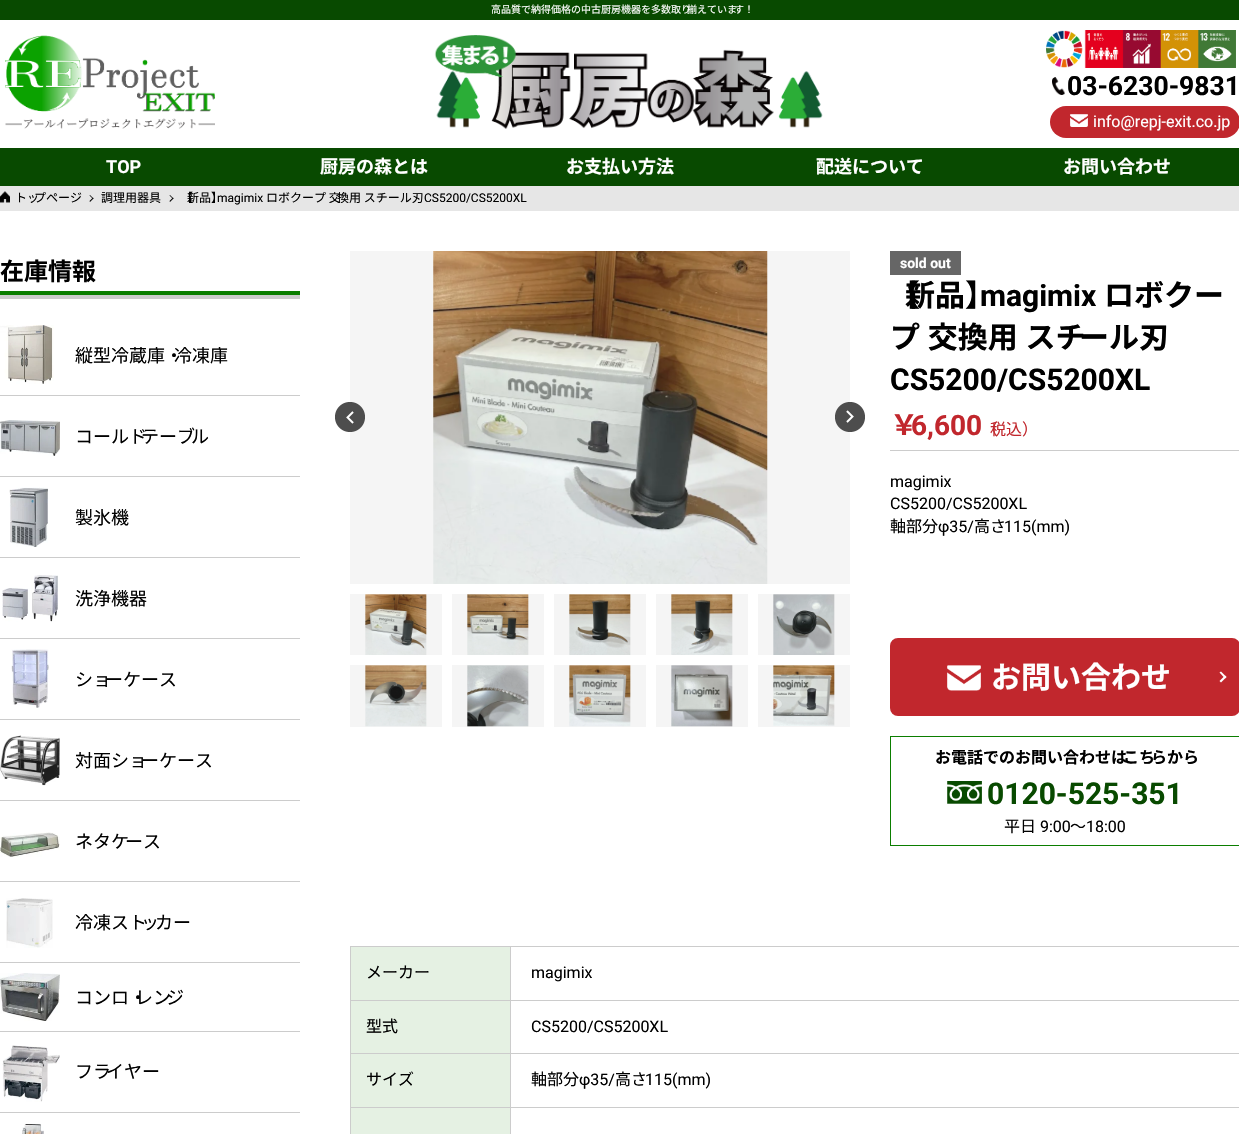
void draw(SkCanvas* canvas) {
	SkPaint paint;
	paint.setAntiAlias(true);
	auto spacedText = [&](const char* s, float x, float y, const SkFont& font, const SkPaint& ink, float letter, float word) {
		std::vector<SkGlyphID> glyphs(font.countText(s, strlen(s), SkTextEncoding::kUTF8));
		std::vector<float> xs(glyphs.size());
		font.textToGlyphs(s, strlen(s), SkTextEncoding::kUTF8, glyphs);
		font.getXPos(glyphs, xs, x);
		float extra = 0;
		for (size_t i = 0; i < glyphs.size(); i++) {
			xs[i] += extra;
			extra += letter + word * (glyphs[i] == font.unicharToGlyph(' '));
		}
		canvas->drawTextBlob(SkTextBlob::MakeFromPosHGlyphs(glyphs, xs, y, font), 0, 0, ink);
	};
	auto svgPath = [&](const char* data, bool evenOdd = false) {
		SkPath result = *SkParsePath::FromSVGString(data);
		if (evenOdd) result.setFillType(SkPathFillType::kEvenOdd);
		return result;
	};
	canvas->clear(0xffffffff);
	paint.setColor(0xff084a00);
	canvas->drawRect(SkRect::MakeXYWH(0, 0, 1239, 20), paint);
	SkFont f1(fontMgr->matchFamilyStyle("Noto Sans JP", SkFontStyle::Normal()), 10);
	f1.setSubpixel(true);
	paint.setColor(0xffffffff);
	canvas->drawString("高品質で納得価格の中古厨房機器を多数取り", 491, 13, f1, paint);
	canvas->drawString("揃えていま", 687, 13, f1, paint);
	canvas->drawString("す！", 734, 13, f1, paint);
	canvas->drawImageRect(SkImages::DeferredFromEncodedData(SkData::MakeFromFileName("img1.png")), SkRect::MakeXYWH(5, 35, 210, 94), SkSamplingOptions());
	canvas->drawImageRect(SkImages::DeferredFromEncodedData(SkData::MakeFromFileName("img2.png")), SkRect::MakeXYWH(434, 35, 389, 94), SkSamplingOptions());
	canvas->drawImageRect(SkImages::DeferredFromEncodedData(SkData::MakeFromFileName("img3.png")), SkRect::MakeXYWH(1046, 30, 190, 38), SkSamplingOptions());
	canvas->drawImageRect(SkImages::DeferredFromEncodedData(SkData::MakeFromFileName("img4.png")), SkRect::MakeXYWH(1052, 77, 13, 18), SkSamplingOptions());
	SkFont f2(fontMgr->matchFamilyStyle("Roboto", SkFontStyle::Bold()), 26.5);
	f2.setSubpixel(true);
	paint.setColor(0xff000000);
	canvas->drawString("03-6230-9831", 1067, 95, f2, paint);
	paint.setColor(0xffc1272d);
	canvas->drawRoundRect(SkRect::MakeXYWH(1050, 106, 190, 32), 16, 16, paint);
	canvas->drawImageRect(SkImages::DeferredFromEncodedData(SkData::MakeFromFileName("img5.png")), SkRect::MakeXYWH(1070, 114, 18, 13), SkSamplingOptions());
	SkFont f3(fontMgr->matchFamilyStyle("Roboto", SkFontStyle::Normal()), 16);
	f3.setSubpixel(true);
	paint.setColor(0xffffffff);
	canvas->drawString("info@repj-exit.co.jp", 1093, 127, f3, paint);
	paint.setColor(0xff084a00);
	canvas->drawRect(SkRect::MakeXYWH(0, 148, 1239, 38), paint);
	SkFont f4(fontMgr->matchFamilyStyle("Roboto", SkFontStyle::Bold()), 18);
	f4.setSubpixel(true);
	paint.setColor(0xffffffff);
	canvas->drawString("TOP", 106, 173, f4, paint);
	SkFont f5(fontMgr->matchFamilyStyle("Noto Sans JP", SkFontStyle::Bold()), 18);
	f5.setSubpixel(true);
	canvas->drawString("厨房の森とは", 320, 173, f5, paint);
	canvas->drawString("お支払い方法", 566, 173, f5, paint);
	canvas->drawString("配送について", 816, 173, f5, paint);
	canvas->drawString("お問い合わせ", 1063, 173, f5, paint);
	paint.setColor(0xffe6e6e6);
	canvas->drawRect(SkRect::MakeXYWH(0, 186, 1239, 25), paint);
	canvas->drawImageRect(SkImages::DeferredFromEncodedData(SkData::MakeFromFileName("img6.png")), SkRect::MakeXYWH(0, 191, 10, 12), SkSamplingOptions());
	SkFont f6(fontMgr->matchFamilyStyle("Noto Sans JP", SkFontStyle::Normal()), 12);
	f6.setSubpixel(true);
	paint.setColor(0xff000000);
	canvas->drawString("トッ", 15, 202, f6, paint);
	canvas->drawString("プページ", 34, 202, f6, paint);
	canvas->drawPath(svgPath("M89.5 195.5L90 195L93.5 198.5L93 199Z"), paint);
	canvas->drawPath(svgPath("M89.5 201L93 197.5L93.5 198.5L90 202Z"), paint);
	canvas->drawString("調理用器具", 101, 202, f6, paint);
	canvas->drawPath(svgPath("M169.5 195.5L170 195L173.5 198.5L173 199Z"), paint);
	canvas->drawPath(svgPath("M169.5 201L173 197.5L173.5 198.5L170 202Z"), paint);
	canvas->drawString("【", 181, 202, f6, paint);
	canvas->drawString("新品】", 187, 202, f6, paint);
	SkFont f7(fontMgr->matchFamilyStyle("Roboto", SkFontStyle::Normal()), 12);
	f7.setSubpixel(true);
	canvas->drawString("magimix", 217, 202, f7, paint);
	canvas->drawString("ロボクープ 交", 266, 202, f6, paint);
	canvas->drawString("換用 スチール刃", 337, 202, f6, paint);
	canvas->drawString("CS5200/CS5200XL", 424, 202, f7, paint);
	paint.setColor(0xff0b7e00);
	canvas->drawRect(SkRect::MakeXYWH(0, 291, 300, 4), paint);
	SkFont f8(fontMgr->matchFamilyStyle("Noto Sans JP", SkFontStyle::Bold()), 24);
	f8.setSubpixel(true);
	paint.setColor(0xff000000);
	canvas->drawString("在庫情報", 0, 280, f8, paint);
	paint.setColor(0xffcccccc);
	canvas->drawRect(SkRect::MakeXYWH(0, 295, 300, 4), paint);
	canvas->drawRect(SkRect::MakeXYWH(0, 395, 300, 1), paint);
	canvas->drawImageRect(SkImages::DeferredFromEncodedData(SkData::MakeFromFileName("img7.png")), SkRect::MakeXYWH(0, 325, 54, 59), SkSamplingOptions());
	SkFont f9(fontMgr->matchFamilyStyle("Noto Sans JP", SkFontStyle::Normal()), 18);
	f9.setSubpixel(true);
	paint.setColor(0xff000000);
	canvas->drawString("縦型冷蔵庫・", 75, 362, f9, paint);
	canvas->drawString("冷凍庫", 174, 362, f9, paint);
	paint.setColor(0xffcccccc);
	canvas->drawRect(SkRect::MakeXYWH(0, 476, 300, 1), paint);
	canvas->drawImageRect(SkImages::DeferredFromEncodedData(SkData::MakeFromFileName("img8.png")), SkRect::MakeXYWH(0, 420, 60, 36), SkSamplingOptions());
	paint.setColor(0xff000000);
	canvas->drawString("コールド", 75, 443, f9, paint);
	canvas->drawString("テーブ", 141, 443, f9, paint);
	canvas->drawString("ル", 191, 443, f9, paint);
	paint.setColor(0xffcccccc);
	canvas->drawRect(SkRect::MakeXYWH(0, 557, 300, 1), paint);
	canvas->drawImageRect(SkImages::DeferredFromEncodedData(SkData::MakeFromFileName("img9.png")), SkRect::MakeXYWH(9, 487, 39, 60), SkSamplingOptions());
	paint.setColor(0xff000000);
	canvas->drawString("製氷機", 75, 524, f9, paint);
	paint.setColor(0xffcccccc);
	canvas->drawRect(SkRect::MakeXYWH(0, 638, 300, 1), paint);
	canvas->drawImageRect(SkImages::DeferredFromEncodedData(SkData::MakeFromFileName("img10.png")), SkRect::MakeXYWH(2, 575, 56, 47), SkSamplingOptions());
	paint.setColor(0xff000000);
	canvas->drawString("洗浄機器", 75, 605, f9, paint);
	paint.setColor(0xffcccccc);
	canvas->drawRect(SkRect::MakeXYWH(0, 719, 300, 1), paint);
	canvas->drawImageRect(SkImages::DeferredFromEncodedData(SkData::MakeFromFileName("img11.png")), SkRect::MakeXYWH(11, 649, 38, 59), SkSamplingOptions());
	paint.setColor(0xff000000);
	canvas->drawString("ショ", 75, 686, f9, paint);
	canvas->drawString("ーケース", 105, 686, f9, paint);
	paint.setColor(0xffcccccc);
	canvas->drawRect(SkRect::MakeXYWH(0, 800, 300, 1), paint);
	canvas->drawImageRect(SkImages::DeferredFromEncodedData(SkData::MakeFromFileName("img12.png")), SkRect::MakeXYWH(0, 735, 60, 51), SkSamplingOptions());
	paint.setColor(0xff000000);
	canvas->drawString("対面ショ", 75, 767, f9, paint);
	canvas->drawString("ーケース", 141, 767, f9, paint);
	paint.setColor(0xffcccccc);
	canvas->drawRect(SkRect::MakeXYWH(0, 881, 300, 1), paint);
	canvas->drawImageRect(SkImages::DeferredFromEncodedData(SkData::MakeFromFileName("img13.png")), SkRect::MakeXYWH(0, 832, 60, 25), SkSamplingOptions());
	paint.setColor(0xff000000);
	canvas->drawString("ネタケ", 75, 848, f9, paint);
	canvas->drawString("ース", 125, 848, f9, paint);
	paint.setColor(0xffcccccc);
	canvas->drawRect(SkRect::MakeXYWH(0, 962, 300, 1), paint);
	canvas->drawImageRect(SkImages::DeferredFromEncodedData(SkData::MakeFromFileName("img14.png")), SkRect::MakeXYWH(6, 898, 47, 50), SkSamplingOptions());
	paint.setColor(0xff000000);
	canvas->drawString("冷凍スト", 75, 929, f9, paint);
	canvas->drawString("ッ", 141, 929, f9, paint);
	canvas->drawString("カー", 155, 929, f9, paint);
	paint.setColor(0xffcccccc);
	canvas->drawRect(SkRect::MakeXYWH(0, 1031, 300, 1), paint);
	canvas->drawImageRect(SkImages::DeferredFromEncodedData(SkData::MakeFromFileName("img15.png")), SkRect::MakeXYWH(0, 973, 60, 48), SkSamplingOptions());
	paint.setColor(0xff000000);
	canvas->drawString("コンロ・", 75, 1004, f9, paint);
	canvas->drawString("レン", 135, 1004, f9, paint);
	canvas->drawString("ジ", 166, 1004, f9, paint);
	paint.setColor(0xffcccccc);
	canvas->drawRect(SkRect::MakeXYWH(0, 1112, 300, 1), paint);
	canvas->drawImageRect(SkImages::DeferredFromEncodedData(SkData::MakeFromFileName("img16.png")), SkRect::MakeXYWH(2, 1045, 58, 57), SkSamplingOptions());
	paint.setColor(0xff000000);
	canvas->drawString("フラ", 75, 1078, f9, paint);
	canvas->drawString("イヤー", 106, 1078, f9, paint);
	canvas->drawImageRect(SkImages::DeferredFromEncodedData(SkData::MakeFromFileName("img17.png")), SkRect::MakeXYWH(22, 1124, 22, 10), SkSamplingOptions());
	paint.setColor(0xfff5f5f5);
	canvas->drawRect(SkRect::MakeXYWH(350, 251, 500, 333), paint);
	canvas->drawImageRect(SkImages::DeferredFromEncodedData(SkData::MakeFromFileName("img18.png")), SkRect::MakeXYWH(433, 251, 335, 333), SkSamplingOptions());
	canvas->drawImageRect(SkImages::DeferredFromEncodedData(SkData::MakeFromFileName("img19.png")), SkRect::MakeXYWH(335, 402, 30, 30), SkSamplingOptions());
	canvas->drawImageRect(SkImages::DeferredFromEncodedData(SkData::MakeFromFileName("img20.png")), SkRect::MakeXYWH(835, 402, 30, 30), SkSamplingOptions());
	canvas->drawRect(SkRect::MakeXYWH(350, 594, 92, 61), paint);
	canvas->drawImageRect(SkImages::DeferredFromEncodedData(SkData::MakeFromFileName("img21.png")), SkRect::MakeXYWH(365, 594, 62, 61), SkSamplingOptions());
	canvas->drawRect(SkRect::MakeXYWH(452, 594, 92, 61), paint);
	canvas->drawImageRect(SkImages::DeferredFromEncodedData(SkData::MakeFromFileName("img22.png")), SkRect::MakeXYWH(467, 594, 62, 61), SkSamplingOptions());
	canvas->drawRect(SkRect::MakeXYWH(554, 594, 92, 61), paint);
	canvas->drawImageRect(SkImages::DeferredFromEncodedData(SkData::MakeFromFileName("img23.png")), SkRect::MakeXYWH(569, 594, 62, 61), SkSamplingOptions());
	canvas->drawRect(SkRect::MakeXYWH(656, 594, 92, 61), paint);
	canvas->drawImageRect(SkImages::DeferredFromEncodedData(SkData::MakeFromFileName("img24.png")), SkRect::MakeXYWH(671, 594, 62, 61), SkSamplingOptions());
	canvas->drawRect(SkRect::MakeXYWH(758, 594, 92, 61), paint);
	canvas->drawImageRect(SkImages::DeferredFromEncodedData(SkData::MakeFromFileName("img25.png")), SkRect::MakeXYWH(773, 594, 62, 61), SkSamplingOptions());
	canvas->drawRect(SkRect::MakeXYWH(350, 665, 92, 62), paint);
	canvas->drawImageRect(SkImages::DeferredFromEncodedData(SkData::MakeFromFileName("img26.png")), SkRect::MakeXYWH(365, 665, 62, 62), SkSamplingOptions());
	canvas->drawRect(SkRect::MakeXYWH(452, 665, 92, 62), paint);
	canvas->drawImageRect(SkImages::DeferredFromEncodedData(SkData::MakeFromFileName("img27.png")), SkRect::MakeXYWH(467, 665, 62, 62), SkSamplingOptions());
	canvas->drawRect(SkRect::MakeXYWH(554, 665, 92, 62), paint);
	canvas->drawImageRect(SkImages::DeferredFromEncodedData(SkData::MakeFromFileName("img28.png")), SkRect::MakeXYWH(569, 665, 62, 62), SkSamplingOptions());
	canvas->drawRect(SkRect::MakeXYWH(656, 665, 92, 62), paint);
	canvas->drawImageRect(SkImages::DeferredFromEncodedData(SkData::MakeFromFileName("img29.png")), SkRect::MakeXYWH(671, 665, 62, 62), SkSamplingOptions());
	canvas->drawRect(SkRect::MakeXYWH(758, 665, 92, 62), paint);
	canvas->drawImageRect(SkImages::DeferredFromEncodedData(SkData::MakeFromFileName("img30.png")), SkRect::MakeXYWH(773, 665, 62, 61), SkSamplingOptions());
	paint.setColor(0xff666666);
	canvas->drawRect(SkRect::MakeXYWH(890, 251, 71, 24), paint);
	SkFont f10(fontMgr->matchFamilyStyle("Roboto", SkFontStyle::Bold()), 14);
	f10.setSubpixel(true);
	paint.setColor(0xffffffff);
	canvas->drawString("sold out", 900, 268, f10, paint);
	SkFont f11(fontMgr->matchFamilyStyle("Noto Sans JP", SkFontStyle::Bold()), 30);
	f11.setSubpixel(true);
	paint.setColor(0xff000000);
	canvas->drawString("【", 890, 306, f11, paint);
	canvas->drawString("新品】", 905, 306, f11, paint);
	SkFont f12(fontMgr->matchFamilyStyle("Roboto", SkFontStyle::Bold()), 30);
	f12.setSubpixel(true);
	canvas->drawString("magimix", 980, 306, f12, paint);
	canvas->drawString("ロボクー", 1104, 306, f11, paint);
	spacedText("プ 交換用 スチ", 890, 348, f11, paint, 0, 1);
	spacedText("ール刃", 1079, 348, f11, paint, 0, 1);
	canvas->drawString("CS5200/CS5200XL", 890, 390, f12, paint);
	paint.setColor(0xffcccccc);
	canvas->drawRect(SkRect::MakeXYWH(890, 450, 349, 1), paint);
	SkFont f13(fontMgr->matchFamilyStyle("Noto Sans JP", SkFontStyle::Bold()), 28);
	f13.setSubpixel(true);
	paint.setColor(0xffc1272d);
	canvas->drawString("￥", 890, 435, f13, paint);
	SkFont f14(fontMgr->matchFamilyStyle("Roboto", SkFontStyle::Bold()), 28);
	f14.setSubpixel(true);
	canvas->drawString("6,600", 911, 435, f14, paint);
	SkFont f15(fontMgr->matchFamilyStyle("Noto Sans JP", SkFontStyle::Normal()), 16);
	f15.setSubpixel(true);
	canvas->drawString("（", 982, 435, f15, paint);
	canvas->drawString("税込）", 990, 435, f15, paint);
	paint.setColor(0xff000000);
	canvas->drawString("magimix", 890, 487, f3, paint);
	canvas->drawString("CS5200/CS5200XL", 890, 509, f3, paint);
	canvas->drawString("軸部分", 890, 532, f15, paint);
	canvas->drawString("φ35/", 938, 532, f3, paint);
	canvas->drawString("高さ", 974, 532, f15, paint);
	canvas->drawString("115(mm)", 1004, 532, f3, paint);
	paint.setColor(0xffc1272d);
	canvas->drawRoundRect(SkRect::MakeXYWH(890, 638, 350, 78), 8, 8, paint);
	canvas->drawImageRect(SkImages::DeferredFromEncodedData(SkData::MakeFromFileName("img31.png")), SkRect::MakeXYWH(947, 665, 34, 26), SkSamplingOptions());
	paint.setColor(0xffffffff);
	canvas->drawString("お問い合わせ", 991, 688, f11, paint);
	canvas->drawPath(svgPath("M1219.5 672.5L1221 671.5L1226.5 677L1225 678.5Z"), paint);
	canvas->drawPath(svgPath("M1219.5 681L1225 675.5L1226.5 677L1221 682.5Z"), paint);
	paint.setStroke(true);
	paint.setStrokeWidth(1);
	paint.setColor(0xff0b7e00);
	canvas->drawRect(SkRect::MakeXYWH(890.5, 736.5, 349, 109), paint);
	SkFont f16(fontMgr->matchFamilyStyle("Noto Sans JP", SkFontStyle::Bold()), 16);
	f16.setSubpixel(true);
	paint.setStroke(false);
	paint.setColor(0xff000000);
	canvas->drawString("お電話でのお問い合わせは", 935, 763, f16, paint);
	canvas->drawString("こち", 1123, 763, f16, paint);
	canvas->drawString("らから", 1151, 763, f16, paint);
	canvas->drawImageRect(SkImages::DeferredFromEncodedData(SkData::MakeFromFileName("img32.png")), SkRect::MakeXYWH(947, 781, 35, 23), SkSamplingOptions());
	paint.setColor(0xff084a00);
	canvas->drawString("0120-525-351", 987, 804, f12, paint);
	paint.setColor(0xff000000);
	canvas->drawString("平日", 1004, 832, f15, paint);
	canvas->drawString("9:00", 1040, 832, f3, paint);
	canvas->drawString("〜", 1070, 832, f15, paint);
	canvas->drawString("18:00", 1086, 832, f3, paint);
	paint.setColor(0xffe5f1e3);
	canvas->drawRect(SkRect::MakeXYWH(351, 947, 159, 53), paint);
	paint.setColor(0xffcccccc);
	canvas->drawRect(SkRect::MakeXYWH(510, 946, 729, 1), paint);
	canvas->drawRect(SkRect::MakeXYWH(510, 1107, 1, 27), paint);
	canvas->drawRect(SkRect::MakeXYWH(510, 1107, 729, 1), paint);
	canvas->drawRect(SkRect::MakeXYWH(510, 1053, 1, 55), paint);
	canvas->drawRect(SkRect::MakeXYWH(510, 1053, 729, 1), paint);
	canvas->drawRect(SkRect::MakeXYWH(510, 1000, 1, 54), paint);
	canvas->drawRect(SkRect::MakeXYWH(510, 1000, 729, 1), paint);
	canvas->drawRect(SkRect::MakeXYWH(510, 946, 1, 55), paint);
	canvas->drawRect(SkRect::MakeXYWH(350, 946, 161, 1), paint);
	canvas->drawRect(SkRect::MakeXYWH(350, 1107, 1, 27), paint);
	canvas->drawRect(SkRect::MakeXYWH(350, 1107, 161, 1), paint);
	canvas->drawRect(SkRect::MakeXYWH(350, 1053, 1, 55), paint);
	canvas->drawRect(SkRect::MakeXYWH(350, 1053, 161, 1), paint);
	canvas->drawRect(SkRect::MakeXYWH(350, 1000, 1, 54), paint);
	canvas->drawRect(SkRect::MakeXYWH(350, 1000, 161, 1), paint);
	canvas->drawRect(SkRect::MakeXYWH(350, 946, 1, 55), paint);
	paint.setColor(0xff000000);
	canvas->drawString("メーカー", 366, 978, f15, paint);
	canvas->drawString("magimix", 531, 978, f3, paint);
	paint.setColor(0xffe5f1e3);
	canvas->drawRect(SkRect::MakeXYWH(351, 1001, 159, 52), paint);
	paint.setColor(0xff000000);
	canvas->drawString("型式", 366, 1032, f15, paint);
	canvas->drawString("CS5200/CS5200XL", 531, 1032, f3, paint);
	paint.setColor(0xffe5f1e3);
	canvas->drawRect(SkRect::MakeXYWH(351, 1054, 159, 53), paint);
	paint.setColor(0xff000000);
	canvas->drawString("サイズ", 366, 1085, f15, paint);
	canvas->drawString("軸部分", 531, 1085, f15, paint);
	canvas->drawString("φ35/", 579, 1085, f3, paint);
	canvas->drawString("高さ", 615, 1085, f15, paint);
	canvas->drawString("115(mm)", 645, 1085, f3, paint);
	paint.setColor(0xffe5f1e3);
	canvas->drawRect(SkRect::MakeXYWH(351, 1108, 159, 26), paint);
}
